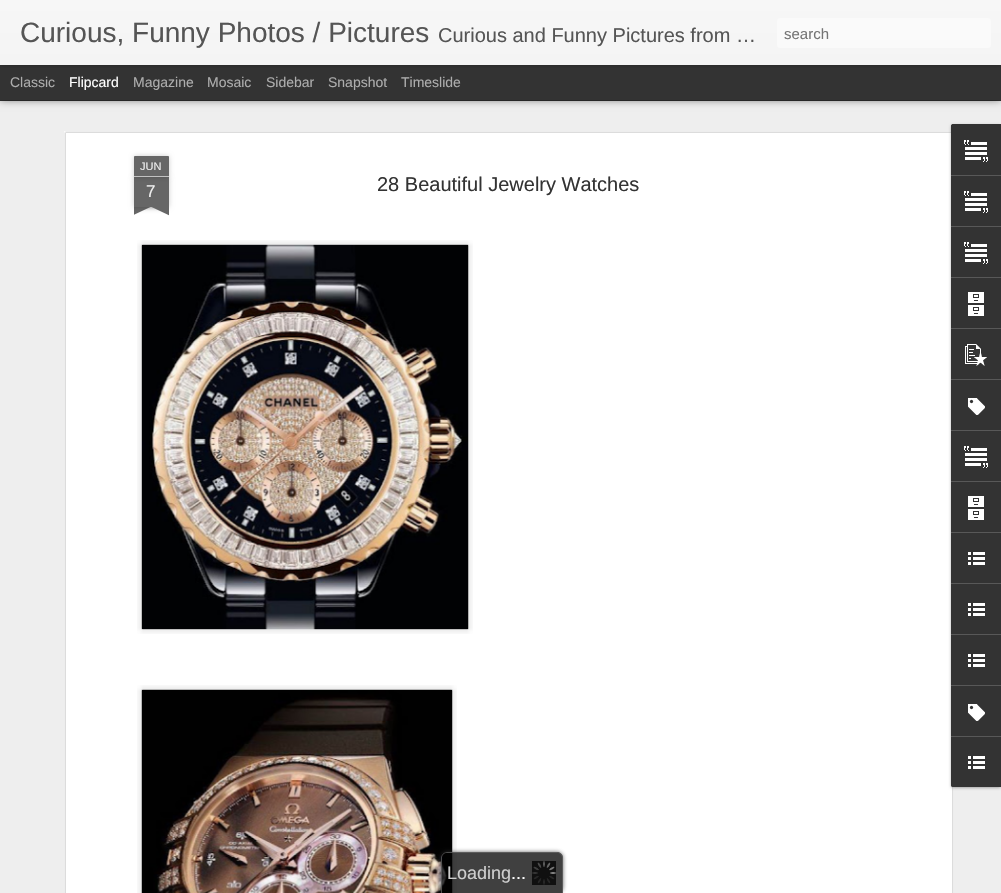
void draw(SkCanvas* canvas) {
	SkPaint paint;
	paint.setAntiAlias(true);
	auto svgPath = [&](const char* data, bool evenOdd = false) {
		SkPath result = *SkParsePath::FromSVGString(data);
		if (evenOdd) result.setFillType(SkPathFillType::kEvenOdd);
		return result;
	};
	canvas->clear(0xff333333);
	paint.setColor(0xffeeeeee);
	canvas->drawRect(SkRect::MakeXYWH(0, 101, 1001, 792), paint);
	paint.setColor(0x80000000);
	paint.setMaskFilter(SkMaskFilter::MakeBlur(kNormal_SkBlurStyle, 4));
	canvas->drawRect(SkRect::MakeXYWH(0, 65, 1001, 35), paint);
	paint.setMaskFilter(nullptr);
	paint.setColor(0xff333333);
	canvas->drawRect(SkRect::MakeXYWH(0, 65, 1001, 35), paint);
	paint.setColor(0x4d000000);
	paint.setMaskFilter(SkMaskFilter::MakeBlur(kNormal_SkBlurStyle, 2.5));
	canvas->drawRect(SkRect::MakeXYWH(0, 0, 1001, 65), paint);
	paint.setMaskFilter(nullptr);
	{
		const SkColor colors[] = {0xfff7f7f7, 0xfff4f4f4};
		const float stops[] = {0, 1};
		const SkPoint ends[] = {{0, 0}, {0, 65}};
		paint.setShader(SkGradientShader::MakeLinear(ends, colors, stops, 2, SkTileMode::kClamp));
		paint.setAlpha(255);
	}
	canvas->drawRect(SkRect::MakeXYWH(0, 0, 1001, 65), paint);
	SkFont f1(fontMgr->matchFamilyStyle("Liberation Sans", SkFontStyle::Normal()), 28);
	f1.setSubpixel(true);
	paint.setShader(nullptr);
	paint.setColor(0xff555555);
	canvas->drawString("Curious, Funny Photos / Pictures", 20, 42, f1, paint);
	SkFont f2(fontMgr->matchFamilyStyle("Liberation Sans", SkFontStyle::Normal()), 20);
	f2.setSubpixel(true);
	canvas->drawString("Curious and Funny Pictures from …", 438, 42, f2, paint);
	paint.setColor(0xfffafafa);
	canvas->drawRoundRect(SkRect::MakeXYWH(777, 18, 214, 30), 3, 3, paint);
	SkFont f3(fontMgr->matchFamilyStyle("Liberation Sans", SkFontStyle::Normal()), 15);
	f3.setSubpixel(true);
	paint.setColor(0xff757575);
	canvas->drawString("search", 784, 39, f3, paint);
	SkFont f4(fontMgr->matchFamilyStyle("Liberation Sans", SkFontStyle::Normal()), 14);
	f4.setSubpixel(true);
	paint.setColor(0xffadadad);
	canvas->drawString("Classic", 10, 87, f4, paint);
	paint.setColor(0xffffffff);
	canvas->drawString("Flipcard", 69, 87, f4, paint);
	paint.setColor(0xffadadad);
	canvas->drawString("Magazine", 133, 87, f4, paint);
	canvas->drawString("Mosaic", 207, 87, f4, paint);
	canvas->drawString("Sidebar", 266, 87, f4, paint);
	canvas->drawString("Snapshot", 328, 87, f4, paint);
	canvas->drawString("Timeslide", 401, 87, f4, paint);
	paint.setColor(0xffffffff);
	canvas->drawRect(SkRect::MakeXYWH(64, 131, 890, 762), paint);
	canvas->drawImageRect(SkImages::DeferredFromEncodedData(SkData::MakeFromFileName("img1.png")), SkRect::MakeXYWH(64, 131, 890, 762), SkSamplingOptions());
	paint.setColor(0x33000000);
	paint.setMaskFilter(SkMaskFilter::MakeBlur(kNormal_SkBlurStyle, 2.5));
	canvas->drawRect(SkRect::MakeXYWH(134, 177, 35, 30), paint);
	paint.setMaskFilter(nullptr);
	paint.setColor(0xff666666);
	canvas->drawRect(SkRect::MakeXYWH(134, 177, 35, 30), paint);
	paint.setColor(0x33000000);
	paint.setMaskFilter(SkMaskFilter::MakeBlur(kNormal_SkBlurStyle, 2.5));
	canvas->drawRoundRect(SkRect::MakeXYWH(134, 156, 35, 21), 1, 1, paint);
	paint.setMaskFilter(nullptr);
	paint.setColor(0xff666666);
	canvas->drawPath(svgPath("M135 156H168C168.5 156 169 156.5 169 157V177H134V157C134 156.5 134.5 156 135 156Z"), paint);
	paint.setColor(0xffc2c2c2);
	canvas->drawRect(SkRect::MakeXYWH(134, 176, 35, 1), paint);
	SkFont f5(fontMgr->matchFamilyStyle("Liberation Sans", SkFontStyle::Normal()), 11);
	f5.setSubpixel(true);
	paint.setColor(0xffeeeeee);
	canvas->drawString("JUN", 140, 170, f5, paint);
	SkFont f6(fontMgr->matchFamilyStyle("Liberation Sans", SkFontStyle::Normal()), 17);
	f6.setSubpixel(true);
	canvas->drawString("7", 146, 197, f6, paint);
	canvas->save();
	canvas->clipRect(SkRect::MakeXYWH(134, 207, 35, 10));
	paint.setColor(0x33000000);
	paint.setMaskFilter(SkMaskFilter::MakeBlur(kNormal_SkBlurStyle, 2.5));
	canvas->drawRect(SkRect::MakeXYWH(125, 197, 50, 10), paint);
	paint.setMaskFilter(nullptr);
	canvas->restore();
	canvas->save();
	canvas->clipRect(SkRect::MakeXYWH(134, 207, 35, 10));
	paint.setColor(0xff666666);
	canvas->drawPath(svgPath("M125 208L170 187L174 196L129 217Z"), paint);
	canvas->restore();
	canvas->save();
	canvas->clipRect(SkRect::MakeXYWH(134, 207, 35, 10));
	paint.setColor(0x33000000);
	paint.setMaskFilter(SkMaskFilter::MakeBlur(kNormal_SkBlurStyle, 2.5));
	canvas->drawRect(SkRect::MakeXYWH(128, 197, 50, 10), paint);
	paint.setMaskFilter(nullptr);
	canvas->restore();
	canvas->save();
	canvas->clipRect(SkRect::MakeXYWH(134, 207, 35, 10));
	paint.setColor(0xff666666);
	canvas->drawPath(svgPath("M132 187L177 208L173 217L128 196Z"), paint);
	canvas->restore();
	paint.setColor(0xff333333);
	canvas->drawString("28 Beautiful Jewelry Watches", 377, 191, f2, paint);
	canvas->drawImageRect(SkImages::DeferredFromEncodedData(SkData::MakeFromFileName("img2.png")), SkRect::MakeXYWH(137, 240, 336, 394), SkSamplingOptions());
	canvas->drawImageRect(SkImages::DeferredFromEncodedData(SkData::MakeFromFileName("img3.png")), SkRect::MakeXYWH(141, 244, 328, 386), SkSamplingOptions());
	canvas->drawImageRect(SkImages::DeferredFromEncodedData(SkData::MakeFromFileName("img4.png")), SkRect::MakeXYWH(137, 685, 320, 208), SkSamplingOptions());
	canvas->drawImageRect(SkImages::DeferredFromEncodedData(SkData::MakeFromFileName("img5.png")), SkRect::MakeXYWH(141, 689, 312, 204), SkSamplingOptions());
	paint.setColor(0x4d000000);
	paint.setMaskFilter(SkMaskFilter::MakeBlur(kNormal_SkBlurStyle, 1.5));
	canvas->drawRoundRect(SkRect::MakeXYWH(951, 125, 50, 663), 2, 2, paint);
	paint.setMaskFilter(nullptr);
	paint.setColor(0xff333333);
	canvas->drawPath(svgPath("M953 124H1001V787H953C952 787 951 786 951 785V126C951 125 952 124 953 124Z"), paint);
	canvas->drawPath(svgPath("M953 124H1001V175H951V126C951 125 952 124 953 124Z"), paint);
	canvas->drawImageRect(SkImages::DeferredFromEncodedData(SkData::MakeFromFileName("img6.png")), SkRect::MakeXYWH(964, 140, 24, 22), SkSamplingOptions());
	paint.setColor(0xff585858);
	canvas->drawRect(SkRect::MakeXYWH(951, 175, 50, 1), paint);
	canvas->drawImageRect(SkImages::DeferredFromEncodedData(SkData::MakeFromFileName("img6.png")), SkRect::MakeXYWH(964, 191, 24, 22), SkSamplingOptions());
	canvas->drawRect(SkRect::MakeXYWH(951, 226, 50, 1), paint);
	canvas->drawImageRect(SkImages::DeferredFromEncodedData(SkData::MakeFromFileName("img6.png")), SkRect::MakeXYWH(964, 242, 24, 22), SkSamplingOptions());
	canvas->drawRect(SkRect::MakeXYWH(951, 277, 50, 1), paint);
	canvas->drawImageRect(SkImages::DeferredFromEncodedData(SkData::MakeFromFileName("img7.png")), SkRect::MakeXYWH(968, 292, 16, 24), SkSamplingOptions());
	canvas->drawRect(SkRect::MakeXYWH(951, 328, 50, 1), paint);
	canvas->drawImageRect(SkImages::DeferredFromEncodedData(SkData::MakeFromFileName("img8.png")), SkRect::MakeXYWH(965, 344, 22, 22), SkSamplingOptions());
	canvas->drawRect(SkRect::MakeXYWH(951, 379, 50, 1), paint);
	canvas->drawImageRect(SkImages::DeferredFromEncodedData(SkData::MakeFromFileName("img9.png")), SkRect::MakeXYWH(968, 398, 17, 17), SkSamplingOptions());
	canvas->drawRect(SkRect::MakeXYWH(951, 430, 50, 1), paint);
	canvas->drawImageRect(SkImages::DeferredFromEncodedData(SkData::MakeFromFileName("img6.png")), SkRect::MakeXYWH(964, 446, 24, 22), SkSamplingOptions());
	canvas->drawRect(SkRect::MakeXYWH(951, 481, 50, 1), paint);
	canvas->drawImageRect(SkImages::DeferredFromEncodedData(SkData::MakeFromFileName("img7.png")), SkRect::MakeXYWH(968, 496, 16, 24), SkSamplingOptions());
	canvas->drawRect(SkRect::MakeXYWH(951, 532, 50, 1), paint);
	canvas->drawImageRect(SkImages::DeferredFromEncodedData(SkData::MakeFromFileName("img10.png")), SkRect::MakeXYWH(968, 552, 17, 13), SkSamplingOptions());
	canvas->drawRect(SkRect::MakeXYWH(951, 583, 50, 1), paint);
	canvas->drawImageRect(SkImages::DeferredFromEncodedData(SkData::MakeFromFileName("img10.png")), SkRect::MakeXYWH(968, 603, 17, 13), SkSamplingOptions());
	canvas->drawRect(SkRect::MakeXYWH(951, 634, 50, 1), paint);
	canvas->drawImageRect(SkImages::DeferredFromEncodedData(SkData::MakeFromFileName("img10.png")), SkRect::MakeXYWH(968, 654, 17, 13), SkSamplingOptions());
	canvas->drawRect(SkRect::MakeXYWH(951, 685, 50, 1), paint);
	canvas->drawImageRect(SkImages::DeferredFromEncodedData(SkData::MakeFromFileName("img9.png")), SkRect::MakeXYWH(968, 704, 17, 17), SkSamplingOptions());
	paint.setColor(0xff333333);
	canvas->drawPath(svgPath("M951 736H1001V787H953C952 787 951 786 951 785Z"), paint);
	paint.setColor(0xff585858);
	canvas->drawRect(SkRect::MakeXYWH(951, 736, 50, 1), paint);
	canvas->drawImageRect(SkImages::DeferredFromEncodedData(SkData::MakeFromFileName("img10.png")), SkRect::MakeXYWH(968, 756, 17, 13), SkSamplingOptions());
	canvas->save();
	canvas->clipPath(svgPath("M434 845H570V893H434ZM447 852H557C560.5 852 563 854.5 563 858V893H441V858C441 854.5 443.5 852 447 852Z", true), true);
	paint.setColor(0xbf333333);
	paint.setMaskFilter(SkMaskFilter::MakeBlur(kNormal_SkBlurStyle, 2));
	canvas->drawRoundRect(SkRect::MakeXYWH(441, 852, 122, 41), 6, 6, paint);
	paint.setMaskFilter(nullptr);
	canvas->restore();
	paint.setColor(0xbf000000);
	canvas->drawPath(svgPath("M447 852H557C560.5 852 563 854.5 563 858V893H441V858C441 854.5 443.5 852 447 852Z"), paint);
	paint.setColor(0xbf666666);
	canvas->drawPath(svgPath("M447 852H557C560 852 563 855 563 858V893H441V858C441 855 444 852 447 852ZM447 853H557C560 853 562 855 562 858V893H442V858C442 855 444 853 447 853Z", true), paint);
	canvas->drawImageRect(SkImages::DeferredFromEncodedData(SkData::MakeFromFileName("img11.png")), SkRect::MakeXYWH(532, 861, 24, 24), SkSamplingOptions());
	SkFont f7(fontMgr->matchFamilyStyle("Liberation Sans", SkFontStyle::Normal()), 18);
	f7.setSubpixel(true);
	paint.setColor(0xffcecece);
	canvas->drawString("Loading", 447, 879, f7, paint);
	paint.setColor(0xffffffff);
	canvas->drawString("...", 511, 879, f7, paint);
}
